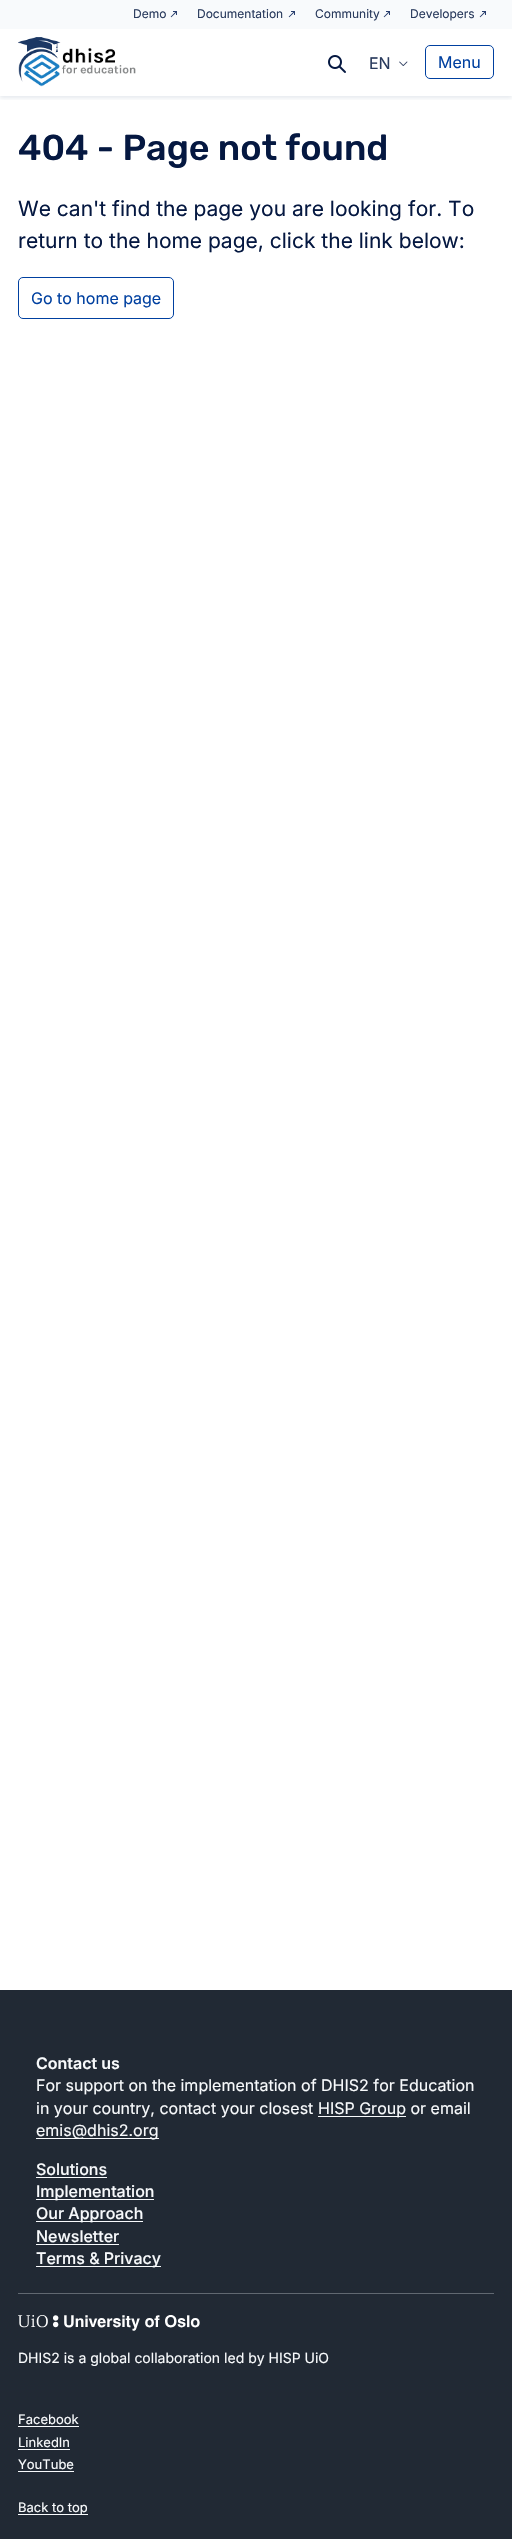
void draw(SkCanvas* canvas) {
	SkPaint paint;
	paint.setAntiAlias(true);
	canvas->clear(0xffffffff);
	paint.setColor(0xfff8fafc);
	canvas->drawRect(SkRect::MakeXYWH(0, 0, 512, 29), paint);
	SkFont f1(fontMgr->matchFamilyStyle("Inter", SkFontStyle::Normal()), 12);
	f1.setSubpixel(true);
	paint.setColor(0xff293a5d);
	canvas->drawString("Demo", 133, 18, f1, paint);
	canvas->drawImageRect(SkImages::DeferredFromEncodedData(SkData::MakeFromFileName("img1.png")), SkRect::MakeXYWH(170, 11, 7, 7), SkSamplingOptions());
	canvas->drawString("Documentation", 197, 18, f1, paint);
	canvas->drawImageRect(SkImages::DeferredFromEncodedData(SkData::MakeFromFileName("img1.png")), SkRect::MakeXYWH(288, 11, 7, 7), SkSamplingOptions());
	canvas->drawString("Community", 315, 18, f1, paint);
	canvas->drawImageRect(SkImages::DeferredFromEncodedData(SkData::MakeFromFileName("img1.png")), SkRect::MakeXYWH(383, 11, 7, 7), SkSamplingOptions());
	canvas->drawString("Developers", 410, 18, f1, paint);
	canvas->drawImageRect(SkImages::DeferredFromEncodedData(SkData::MakeFromFileName("img1.png")), SkRect::MakeXYWH(479, 11, 7, 7), SkSamplingOptions());
	canvas->save();
	canvas->clipRect(SkRect::MakeXYWH(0, 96, 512, 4));
	paint.setColor(0x1a031b4e);
	paint.setMaskFilter(SkMaskFilter::MakeBlur(kNormal_SkBlurStyle, 2));
	canvas->drawRect(SkRect::MakeXYWH(0, 31, 512, 67), paint);
	paint.setMaskFilter(nullptr);
	canvas->restore();
	canvas->drawImageRect(SkImages::DeferredFromEncodedData(SkData::MakeFromFileName("img2.png")), SkRect::MakeXYWH(18, 37, 118, 50), SkSamplingOptions());
	canvas->drawImageRect(SkImages::DeferredFromEncodedData(SkData::MakeFromFileName("img3.png")), SkRect::MakeXYWH(328, 55, 18, 18), SkSamplingOptions());
	SkFont f2(fontMgr->matchFamilyStyle("Inter", SkFontStyle::Normal()), 16);
	f2.setSubpixel(true);
	paint.setColor(0xff293a5d);
	canvas->drawString("EN", 369, 69, f2, paint);
	canvas->drawImageRect(SkImages::DeferredFromEncodedData(SkData::MakeFromFileName("img4.png")), SkRect::MakeXYWH(399, 61, 9, 5), SkSamplingOptions());
	paint.setStroke(true);
	paint.setStrokeWidth(1);
	paint.setColor(0xff0040a0);
	canvas->drawRoundRect(SkRect::MakeXYWH(425.5, 45.5, 68, 33), 4.5, 4.5, paint);
	paint.setStroke(false);
	canvas->drawString("Menu", 438, 68, f2, paint);
	SkFont f3(fontMgr->matchFamilyStyle("Rubik", SkFontStyle(300, SkFontStyle::kNormal_Width, SkFontStyle::kUpright_Slant)), 36);
	f3.setSubpixel(true);
	paint.setColor(0xff051841);
	canvas->drawString("404 - Page not found", 18, 160, f3, paint);
	SkFont f4(fontMgr->matchFamilyStyle("Inter", SkFontStyle::Normal()), 21);
	f4.setSubpixel(true);
	canvas->drawString("We can't find the page you are looking for. To", 18, 216, f4, paint);
	canvas->drawString("return to the home page, click the link below:", 18, 248, f4, paint);
	paint.setStroke(true);
	paint.setColor(0xff0040a0);
	canvas->drawRoundRect(SkRect::MakeXYWH(18.5, 277.5, 155, 41), 4.5, 4.5, paint);
	paint.setStroke(false);
	canvas->drawString("Go to home page", 31, 304, f2, paint);
	paint.setColor(0xff212934);
	canvas->drawRect(SkRect::MakeXYWH(0, 1990, 512, 549), paint);
	SkFont f5(fontMgr->matchFamilyStyle("Inter", SkFontStyle(600, SkFontStyle::kNormal_Width, SkFontStyle::kUpright_Slant)), 16);
	f5.setSubpixel(true);
	paint.setColor(0xfff8fafc);
	canvas->drawString("Contact us", 36, 2069, f5, paint);
	canvas->drawString("For support on the implementation of DHIS2 for Education", 36, 2091, f2, paint);
	canvas->drawString("in your country, contact your closest", 36, 2114, f2, paint);
	canvas->drawRect(SkRect::MakeXYWH(318, 2116, 88, 1), paint);
	canvas->drawString("HISP Group or email", 318, 2114, f2, paint);
	canvas->drawRect(SkRect::MakeXYWH(36, 2138, 123, 1), paint);
	canvas->drawString("emis@dhis2.org", 36, 2136, f2, paint);
	SkFont f6(fontMgr->matchFamilyStyle("Inter", SkFontStyle(500, SkFontStyle::kNormal_Width, SkFontStyle::kUpright_Slant)), 16);
	f6.setSubpixel(true);
	canvas->drawString("Solutions", 36, 2175, f6, paint);
	canvas->drawRect(SkRect::MakeXYWH(36, 2177, 71, 1), paint);
	canvas->drawRect(SkRect::MakeXYWH(36, 2199, 118, 1), paint);
	canvas->drawString("Implementation", 36, 2197, f6, paint);
	canvas->drawRect(SkRect::MakeXYWH(36, 2221, 107, 1), paint);
	canvas->drawString("Our Approach", 36, 2219, f6, paint);
	canvas->drawString("Newsletter", 36, 2242, f6, paint);
	canvas->drawRect(SkRect::MakeXYWH(36, 2244, 83, 1), paint);
	canvas->drawRect(SkRect::MakeXYWH(36, 2266, 125, 1), paint);
	canvas->drawString("Terms & Privacy", 36, 2264, f6, paint);
	paint.setColor(0xff616871);
	canvas->drawRect(SkRect::MakeXYWH(18, 2293, 476, 1), paint);
	canvas->drawImageRect(SkImages::DeferredFromEncodedData(SkData::MakeFromFileName("img5.png")), SkRect::MakeXYWH(18, 2315, 182, 16), SkSamplingOptions());
	SkFont f7(fontMgr->matchFamilyStyle("Inter", SkFontStyle::Normal()), 14);
	f7.setSubpixel(true);
	paint.setColor(0xfff8fafc);
	canvas->drawString("DHIS2 is a global collaboration led by HISP UiO", 18, 2363, f7, paint);
	SkFont f8(fontMgr->matchFamilyStyle("Inter", SkFontStyle::Normal()), 13);
	f8.setSubpixel(true);
	canvas->drawString("Facebook", 18, 2424, f8, paint);
	canvas->drawRect(SkRect::MakeXYWH(18, 2426, 61, 1), paint);
	canvas->drawString("LinkedIn", 18, 2447, f8, paint);
	canvas->drawRect(SkRect::MakeXYWH(18, 2449, 52, 1), paint);
	canvas->drawString("YouTube", 18, 2469, f8, paint);
	canvas->drawRect(SkRect::MakeXYWH(18, 2471, 56, 1), paint);
	canvas->drawRect(SkRect::MakeXYWH(18, 2514, 70, 1), paint);
	canvas->drawString("Back to top", 18, 2512, f8, paint);
}
